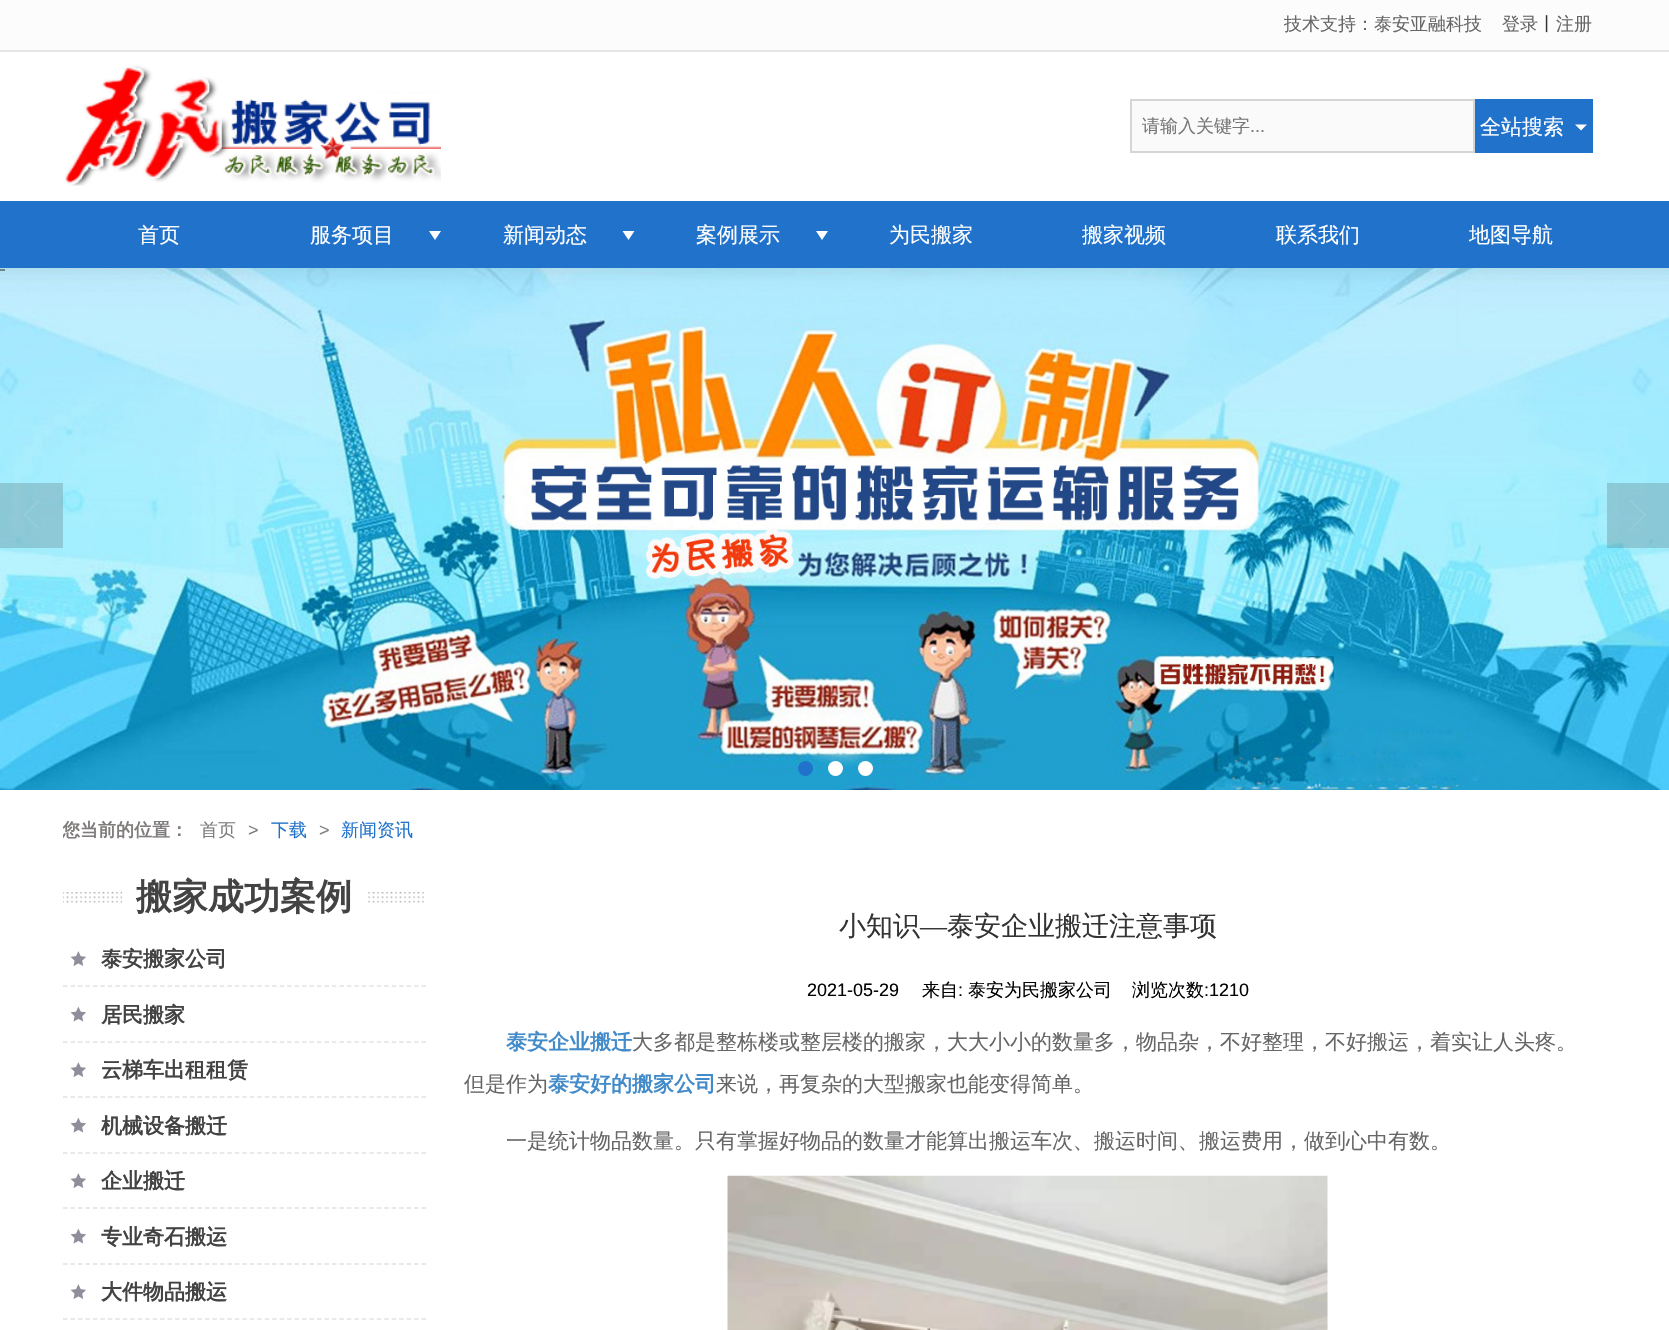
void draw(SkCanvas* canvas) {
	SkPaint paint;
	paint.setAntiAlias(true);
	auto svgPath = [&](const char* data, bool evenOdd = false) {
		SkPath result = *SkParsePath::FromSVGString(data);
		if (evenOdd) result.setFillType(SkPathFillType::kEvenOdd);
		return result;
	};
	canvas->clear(0xffffffff);
	paint.setColor(0xfffcfcfc);
	canvas->drawRect(SkRect::MakeXYWH(0, 0, 1669, 50), paint);
	paint.setColor(0xffe6e6e6);
	canvas->drawRect(SkRect::MakeXYWH(0, 50, 1669, 2), paint);
	SkFont f1(fontMgr->matchFamilyStyle("WenQuanYi Zen Hei", SkFontStyle(500, SkFontStyle::kNormal_Width, SkFontStyle::kUpright_Slant)), 18);
	f1.setSubpixel(true);
	paint.setColor(0xff666666);
	canvas->drawString("技术支持：泰安亚融科技", 1284, 30, f1, paint);
	canvas->drawString("登录", 1502, 30, f1, paint);
	paint.setColor(0xff333333);
	canvas->drawString("丨", 1538, 30, f1, paint);
	paint.setColor(0xff666666);
	canvas->drawString("注册", 1556, 30, f1, paint);
	canvas->drawImageRect(SkImages::DeferredFromEncodedData(SkData::MakeFromFileName("img1.png")), SkRect::MakeXYWH(65, 65, 376, 121), SkSamplingOptions());
	paint.setColor(0xfffafafa);
	canvas->drawRect(SkRect::MakeXYWH(1131, 100, 343, 52), paint);
	paint.setStroke(true);
	paint.setStrokeWidth(2);
	paint.setColor(0xffd5d5d5);
	canvas->drawRect(SkRect::MakeXYWH(1131, 100, 343, 52), paint);
	paint.setStroke(false);
	paint.setColor(0xff777777);
	canvas->drawString("请输入关键字", 1142, 132, f1, paint);
	SkFont f2(fontMgr->matchFamilyStyle("Liberation Sans", SkFontStyle::Normal()), 18);
	f2.setSubpixel(true);
	canvas->drawString("...", 1250, 132, f2, paint);
	paint.setColor(0xff2072cb);
	canvas->drawRect(SkRect::MakeXYWH(1475, 99, 118, 54), paint);
	SkFont f3(fontMgr->matchFamilyStyle("WenQuanYi Zen Hei", SkFontStyle(500, SkFontStyle::kNormal_Width, SkFontStyle::kUpright_Slant)), 21);
	f3.setSubpixel(true);
	paint.setColor(0xffffffff);
	canvas->drawString("全站搜索", 1480, 134, f3, paint);
	canvas->drawPath(svgPath("M1575 124.5H1587L1581 130.5Z"), paint);
	paint.setColor(0xff2072cb);
	canvas->drawRect(SkRect::MakeXYWH(0, 201, 1669, 67), paint);
	paint.setColor(0xffffffff);
	canvas->drawString("首页", 138, 242, f3, paint);
	canvas->drawString("服务项目", 310, 242, f3, paint);
	canvas->drawPath(svgPath("M429 231H441L435 240Z"), paint);
	canvas->drawString("新闻动态", 503, 242, f3, paint);
	canvas->drawPath(svgPath("M622.5 231H634.5L628.5 240Z"), paint);
	canvas->drawString("案例展示", 696, 242, f3, paint);
	canvas->drawPath(svgPath("M816 231H828L822 240Z"), paint);
	canvas->drawString("为民搬家", 889, 242, f3, paint);
	canvas->drawString("搬家视频", 1082, 242, f3, paint);
	canvas->drawString("联系我们", 1276, 242, f3, paint);
	canvas->drawString("地图导航", 1469, 242, f3, paint);
	canvas->drawImageRect(SkImages::DeferredFromEncodedData(SkData::MakeFromFileName("img2.png")), SkRect::MakeXYWH(0, 268, 1669, 522), SkSamplingOptions());
	paint.setColor(0xff6b8790);
	canvas->drawRect(SkRect::MakeXYWH(0, 269, 5, 2), paint);
	paint.setColor(0x33393939);
	canvas->drawRect(SkRect::MakeXYWH(0, 483, 63, 65), paint);
	canvas->drawImageRect(SkImages::DeferredFromEncodedData(SkData::MakeFromFileName("img3.png")), SkRect::MakeXYWH(24, 500, 15, 29), SkSamplingOptions());
	canvas->drawRect(SkRect::MakeXYWH(1607, 483, 62, 65), paint);
	canvas->drawImageRect(SkImages::DeferredFromEncodedData(SkData::MakeFromFileName("img4.png")), SkRect::MakeXYWH(1630, 500, 16, 29), SkSamplingOptions());
	paint.setColor(0xff2072cb);
	canvas->drawCircle(805.5, 768.5, 7.5, paint);
	paint.setColor(0xffffffff);
	canvas->drawCircle(835.5, 768.5, 7.5, paint);
	canvas->drawCircle(865.5, 768.5, 7.5, paint);
	canvas->save();
	canvas->clipRect(SkRect::MakeXYWH(63, 806, 1545, 54));
	SkFont f4(fontMgr->matchFamilyStyle("WenQuanYi Zen Hei", SkFontStyle::Bold()), 18);
	f4.setSubpixel(true);
	paint.setColor(0xff807c7c);
	canvas->drawString("您当前的位置：", 62, 836, f4, paint);
	canvas->restore();
	canvas->drawString("首页", 200, 836, f1, paint);
	canvas->drawString(">", 248, 836, f2, paint);
	paint.setColor(0xff2072cb);
	canvas->drawString("下载", 271, 836, f1, paint);
	paint.setColor(0xff807c7c);
	canvas->drawString(">", 319, 836, f2, paint);
	paint.setColor(0xff2072cb);
	canvas->drawString("新闻资讯", 341, 836, f1, paint);
	canvas->drawImageRect(SkImages::DeferredFromEncodedData(SkData::MakeFromFileName("img5.png")), SkRect::MakeXYWH(63, 892, 361, 11), SkSamplingOptions());
	paint.setColor(0xffffffff);
	canvas->drawRect(SkRect::MakeXYWH(122, 892, 244, 11), paint);
	SkFont f5(fontMgr->matchFamilyStyle("WenQuanYi Zen Hei", SkFontStyle::Bold()), 36);
	f5.setSubpixel(true);
	paint.setColor(0xff434343);
	canvas->drawString("搬家成功案例", 136, 909, f5, paint);
	paint.setStroke(true);
	paint.setStrokeWidth(1.5);
	paint.setColor(0xffe3e2e2);
	paint.setPathEffect(SkDashPathEffect::Make({{4.5f, 2.97f}}, 0));
	canvas->drawPath(svgPath("M63 986H426"), paint);
	paint.setPathEffect(nullptr);
	canvas->drawImageRect(SkImages::DeferredFromEncodedData(SkData::MakeFromFileName("img6.png")), SkRect::MakeXYWH(70, 951, 16, 15), SkSamplingOptions());
	SkFont f6(fontMgr->matchFamilyStyle("WenQuanYi Zen Hei", SkFontStyle::Bold()), 21);
	f6.setSubpixel(true);
	paint.setStroke(false);
	paint.setColor(0xff434343);
	canvas->drawString("泰安搬家公司", 101, 966, f6, paint);
	paint.setStroke(true);
	paint.setColor(0xffe3e2e2);
	paint.setPathEffect(SkDashPathEffect::Make({{4.5f, 2.97f}}, 0));
	canvas->drawPath(svgPath("M63 1042H426"), paint);
	paint.setPathEffect(nullptr);
	canvas->drawImageRect(SkImages::DeferredFromEncodedData(SkData::MakeFromFileName("img7.png")), SkRect::MakeXYWH(70, 1006, 16, 16), SkSamplingOptions());
	paint.setStroke(false);
	paint.setColor(0xff434343);
	canvas->drawString("居民搬家", 101, 1022, f6, paint);
	paint.setStroke(true);
	paint.setColor(0xffe3e2e2);
	paint.setPathEffect(SkDashPathEffect::Make({{4.5f, 2.97f}}, 0));
	canvas->drawPath(svgPath("M63 1097H426"), paint);
	paint.setPathEffect(nullptr);
	canvas->drawImageRect(SkImages::DeferredFromEncodedData(SkData::MakeFromFileName("img6.png")), SkRect::MakeXYWH(70, 1062, 16, 15), SkSamplingOptions());
	paint.setStroke(false);
	paint.setColor(0xff434343);
	canvas->drawString("云梯车出租租赁", 101, 1077, f6, paint);
	paint.setStroke(true);
	paint.setColor(0xffe3e2e2);
	paint.setPathEffect(SkDashPathEffect::Make({{4.5f, 2.97f}}, 0));
	canvas->drawPath(svgPath("M63 1153H426"), paint);
	paint.setPathEffect(nullptr);
	canvas->drawImageRect(SkImages::DeferredFromEncodedData(SkData::MakeFromFileName("img7.png")), SkRect::MakeXYWH(70, 1117, 16, 16), SkSamplingOptions());
	paint.setStroke(false);
	paint.setColor(0xff434343);
	canvas->drawString("机械设备搬迁", 101, 1133, f6, paint);
	paint.setStroke(true);
	paint.setColor(0xffe3e2e2);
	paint.setPathEffect(SkDashPathEffect::Make({{4.5f, 2.97f}}, 0));
	canvas->drawPath(svgPath("M63 1208H426"), paint);
	paint.setPathEffect(nullptr);
	canvas->drawImageRect(SkImages::DeferredFromEncodedData(SkData::MakeFromFileName("img6.png")), SkRect::MakeXYWH(70, 1173, 16, 15), SkSamplingOptions());
	paint.setStroke(false);
	paint.setColor(0xff434343);
	canvas->drawString("企业搬迁", 101, 1188, f6, paint);
	paint.setStroke(true);
	paint.setColor(0xffe3e2e2);
	paint.setPathEffect(SkDashPathEffect::Make({{4.5f, 2.97f}}, 0));
	canvas->drawPath(svgPath("M63 1264H426"), paint);
	paint.setPathEffect(nullptr);
	canvas->drawImageRect(SkImages::DeferredFromEncodedData(SkData::MakeFromFileName("img7.png")), SkRect::MakeXYWH(70, 1228, 16, 16), SkSamplingOptions());
	paint.setStroke(false);
	paint.setColor(0xff434343);
	canvas->drawString("专业奇石搬运", 101, 1244, f6, paint);
	paint.setStroke(true);
	paint.setColor(0xffe3e2e2);
	paint.setPathEffect(SkDashPathEffect::Make({{4.5f, 2.97f}}, 0));
	canvas->drawPath(svgPath("M63 1319H426"), paint);
	paint.setPathEffect(nullptr);
	canvas->drawImageRect(SkImages::DeferredFromEncodedData(SkData::MakeFromFileName("img6.png")), SkRect::MakeXYWH(70, 1284, 16, 15), SkSamplingOptions());
	paint.setStroke(false);
	paint.setColor(0xff434343);
	canvas->drawString("大件物品搬运", 101, 1299, f6, paint);
	SkFont f7(fontMgr->matchFamilyStyle("WenQuanYi Zen Hei", SkFontStyle(500, SkFontStyle::kNormal_Width, SkFontStyle::kUpright_Slant)), 27);
	f7.setSubpixel(true);
	paint.setColor(0xff333333);
	canvas->drawString("小知识", 839, 935, f7, paint);
	SkFont f8(fontMgr->matchFamilyStyle("Liberation Serif", SkFontStyle::Normal()), 27);
	f8.setSubpixel(true);
	canvas->drawString("—", 920, 935, f8, paint);
	canvas->drawString("泰安企业搬迁注意事项", 947, 935, f7, paint);
	paint.setColor(0xff000000);
	canvas->drawString("2021-05-29", 807, 996, f2, paint);
	canvas->drawString("来自", 922, 996, f1, paint);
	canvas->drawString(":", 958, 996, f2, paint);
	canvas->drawString("泰安为民搬家公司", 968, 996, f1, paint);
	canvas->drawString("浏览次数", 1132, 996, f1, paint);
	canvas->drawString(":1210", 1204, 996, f2, paint);
	paint.setColor(0xff428bca);
	canvas->drawString("泰安企业搬迁", 506, 1049, f6, paint);
	paint.setColor(0xff666666);
	canvas->drawString("大多都是整栋楼或整层楼的搬家，大大小小的数量多，物品杂，不好整理，不好搬运，着实让人头疼。", 632, 1049, f3, paint);
	canvas->drawString("但是作为", 464, 1091, f3, paint);
	paint.setColor(0xff428bca);
	canvas->drawString("泰安好的搬家公司", 548, 1091, f6, paint);
	paint.setColor(0xff666666);
	canvas->drawString("来说，再复杂的大型搬家也能变得简单。", 716, 1091, f3, paint);
	canvas->drawString("一是统计物品数量。只有掌握好物品的数量才能算出搬运车次、搬运时间、搬运费用，做到心中有数。", 506, 1148, f3, paint);
	canvas->drawImageRect(SkImages::DeferredFromEncodedData(SkData::MakeFromFileName("img8.png")), SkRect::MakeXYWH(727, 1175, 601, 155), SkSamplingOptions());
}
